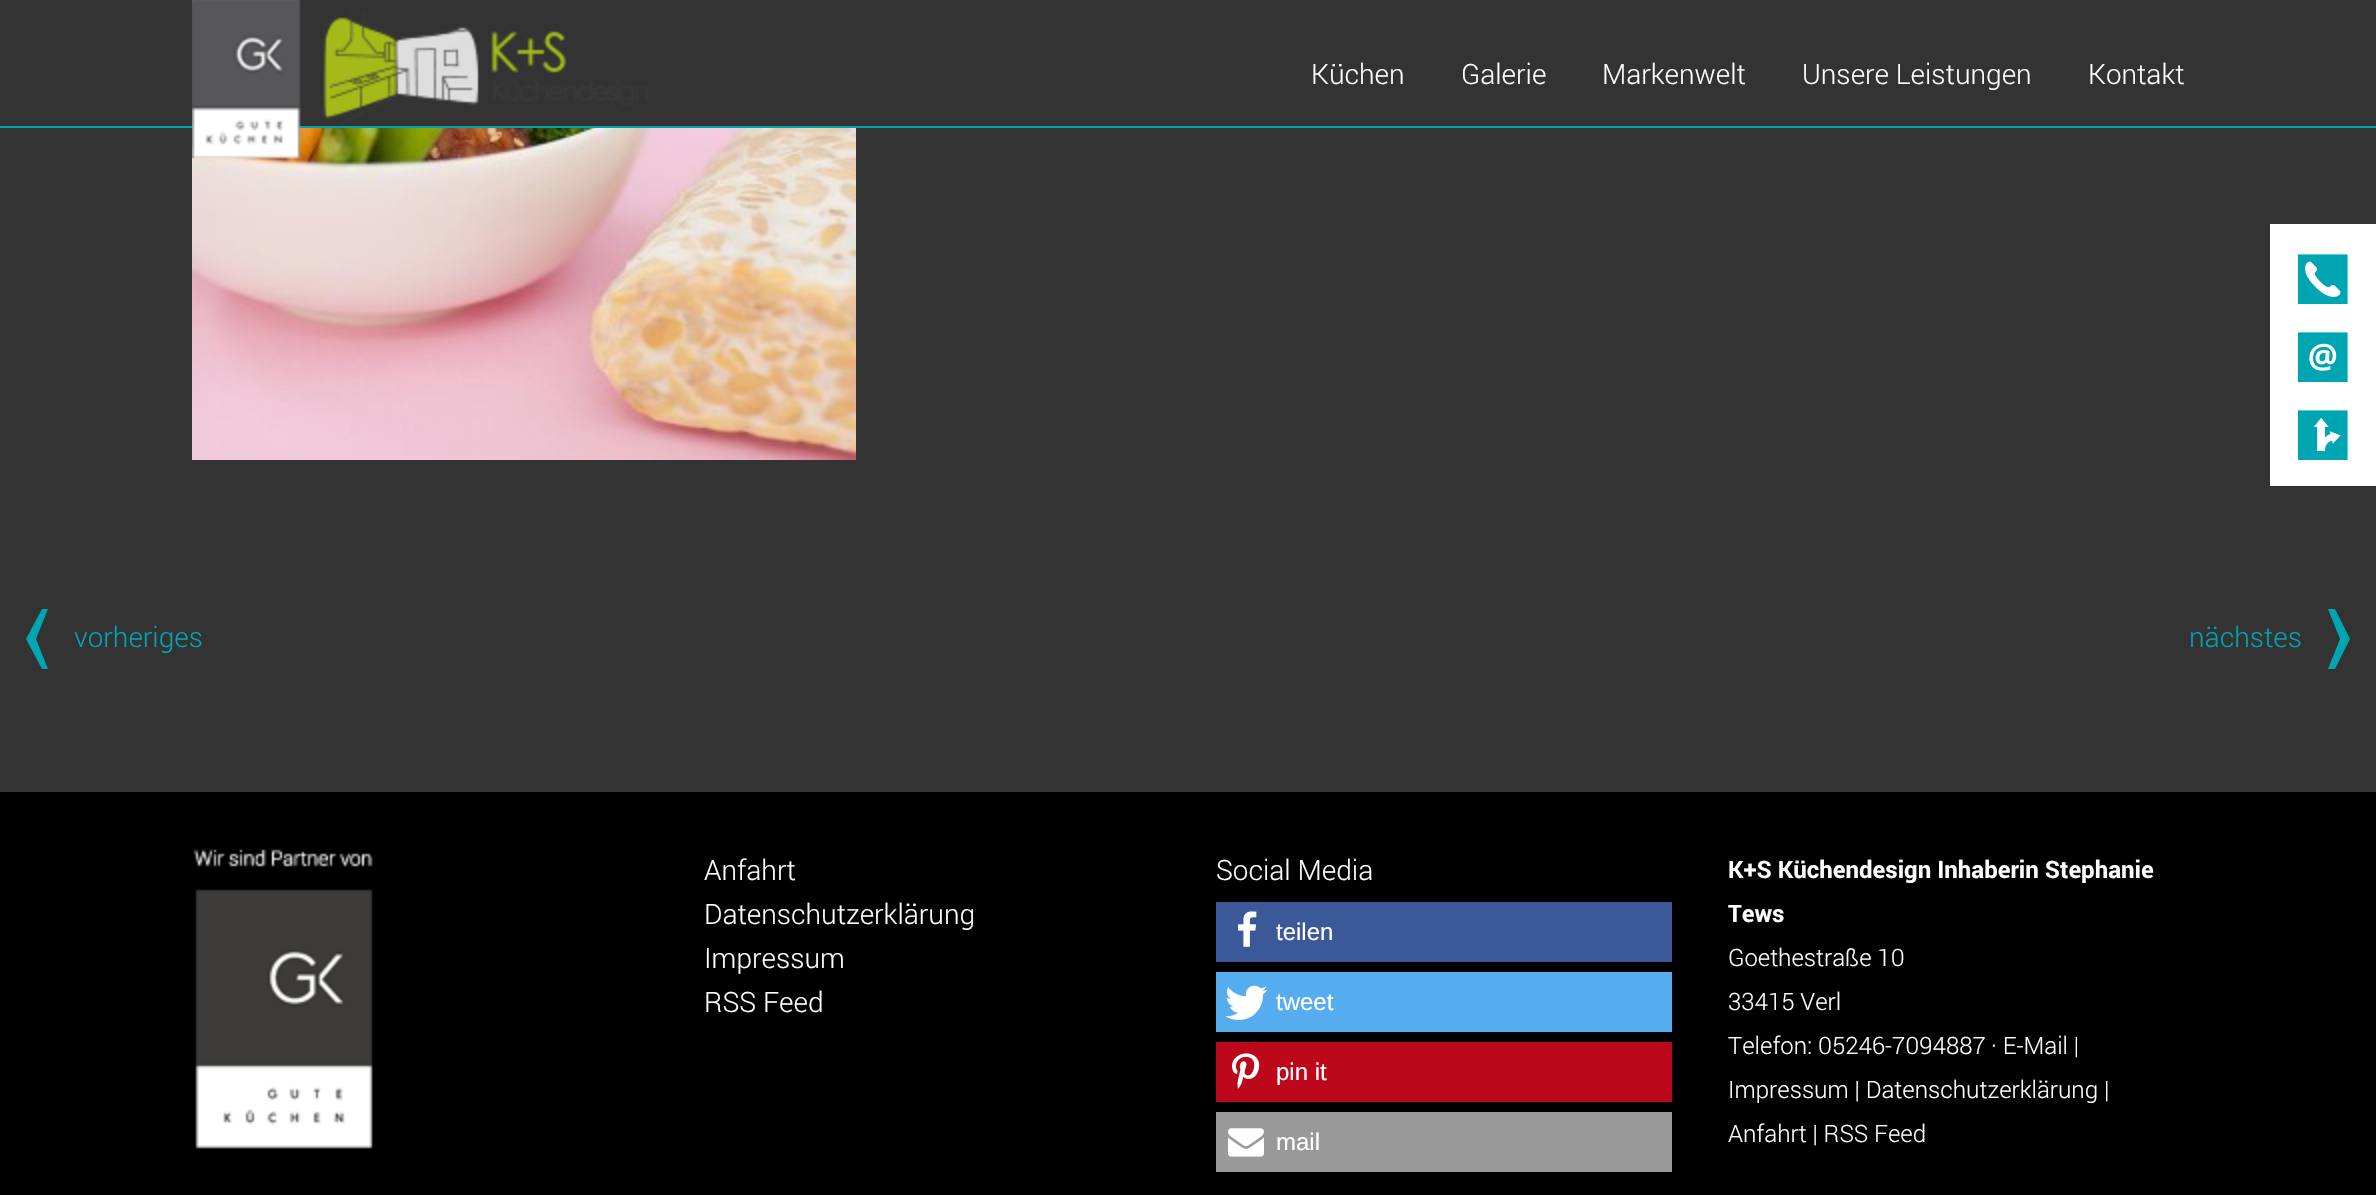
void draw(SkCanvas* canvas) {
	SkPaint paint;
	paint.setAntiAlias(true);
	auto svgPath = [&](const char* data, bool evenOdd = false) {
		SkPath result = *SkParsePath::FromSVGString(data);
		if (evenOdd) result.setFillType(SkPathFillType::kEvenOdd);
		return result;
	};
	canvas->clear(0xff333333);
	paint.setColor(0xff00a5b2);
	canvas->drawRect(SkRect::MakeXYWH(0, 126, 2376, 2), paint);
	canvas->drawImageRect(SkImages::DeferredFromEncodedData(SkData::MakeFromFileName("img5.png")), SkRect::MakeXYWH(192, 128, 664, 332), SkSamplingOptions());
	canvas->drawImageRect(SkImages::DeferredFromEncodedData(SkData::MakeFromFileName("img1.png")), SkRect::MakeXYWH(192, 0, 456, 159), SkSamplingOptions());
	SkFont f1(fontMgr->matchFamilyStyle("Roboto", SkFontStyle(300, SkFontStyle::kNormal_Width, SkFontStyle::kUpright_Slant)), 28);
	f1.setSubpixel(true);
	paint.setColor(0xffffffff);
	canvas->drawString("Küchen", 1311, 84, f1, paint);
	canvas->drawString("Galerie", 1461, 84, f1, paint);
	canvas->drawString("Markenwelt", 1602, 84, f1, paint);
	canvas->drawString("Unsere Leistungen", 1802, 84, f1, paint);
	canvas->drawString("Kontakt", 2088, 84, f1, paint);
	canvas->drawRect(SkRect::MakeXYWH(2270, 224, 106, 262), paint);
	canvas->drawImageRect(SkImages::DeferredFromEncodedData(SkData::MakeFromFileName("img2.png")), SkRect::MakeXYWH(2298, 254, 50, 50), SkSamplingOptions());
	canvas->drawImageRect(SkImages::DeferredFromEncodedData(SkData::MakeFromFileName("img3.png")), SkRect::MakeXYWH(2298, 332, 50, 50), SkSamplingOptions());
	canvas->drawImageRect(SkImages::DeferredFromEncodedData(SkData::MakeFromFileName("img4.png")), SkRect::MakeXYWH(2298, 410, 50, 50), SkSamplingOptions());
	paint.setColor(0xff00a5b2);
	canvas->drawPath(svgPath("M42 609H48L36 639L48 669H42L26 639Z"), paint);
	canvas->drawString("vorheriges", 74, 647, f1, paint);
	canvas->drawString("nächstes", 2189, 647, f1, paint);
	canvas->drawPath(svgPath("M2335 669H2328L2340 639L2328 609H2335L2350 639Z"), paint);
	paint.setColor(0xff000000);
	canvas->drawRect(SkRect::MakeXYWH(0, 792, 2376, 403), paint);
	canvas->drawImageRect(SkImages::DeferredFromEncodedData(SkData::MakeFromFileName("img6.png")), SkRect::MakeXYWH(193, 849, 180, 300), SkSamplingOptions());
	paint.setColor(0xffffffff);
	canvas->drawString("Anfahrt", 704, 880, f1, paint);
	canvas->drawString("Datenschutzerklärung", 704, 924, f1, paint);
	canvas->drawString("Impressum", 704, 968, f1, paint);
	canvas->drawString("RSS Feed", 704, 1012, f1, paint);
	canvas->drawString("Social Media", 1216, 880, f1, paint);
	paint.setColor(0xff3b5998);
	canvas->drawRect(SkRect::MakeXYWH(1216, 902, 456, 60), paint);
	canvas->drawImageRect(SkImages::DeferredFromEncodedData(SkData::MakeFromFileName("img7.png")), SkRect::MakeXYWH(1238, 911, 19, 36), SkSamplingOptions());
	SkFont f2(fontMgr->matchFamilyStyle("Liberation Sans", SkFontStyle::Normal()), 24);
	f2.setSubpixel(true);
	paint.setColor(0xffffffff);
	canvas->drawString("teilen", 1276, 940, f2, paint);
	paint.setColor(0xff55acee);
	canvas->drawRect(SkRect::MakeXYWH(1216, 972, 456, 60), paint);
	canvas->drawImageRect(SkImages::DeferredFromEncodedData(SkData::MakeFromFileName("img8.png")), SkRect::MakeXYWH(1225, 985, 43, 35), SkSamplingOptions());
	paint.setColor(0xffffffff);
	canvas->drawString("tweet", 1276, 1010, f2, paint);
	paint.setColor(0xffbd081c);
	canvas->drawRect(SkRect::MakeXYWH(1216, 1042, 456, 60), paint);
	canvas->drawImageRect(SkImages::DeferredFromEncodedData(SkData::MakeFromFileName("img9.png")), SkRect::MakeXYWH(1232, 1053, 28, 36), SkSamplingOptions());
	paint.setColor(0xffffffff);
	canvas->drawString("pin it", 1276, 1080, f2, paint);
	paint.setColor(0xff999999);
	canvas->drawRect(SkRect::MakeXYWH(1216, 1112, 456, 60), paint);
	canvas->drawImageRect(SkImages::DeferredFromEncodedData(SkData::MakeFromFileName("img10.png")), SkRect::MakeXYWH(1228, 1128, 36, 29), SkSamplingOptions());
	paint.setColor(0xffffffff);
	canvas->drawString("mail", 1276, 1150, f2, paint);
	SkFont f3(fontMgr->matchFamilyStyle("Roboto", SkFontStyle::Bold()), 24);
	f3.setSubpixel(true);
	canvas->drawString("K+S Küchendesign Inhaberin Stephanie", 1728, 878, f3, paint);
	canvas->drawString("Tews", 1728, 922, f3, paint);
	SkFont f4(fontMgr->matchFamilyStyle("Roboto", SkFontStyle(300, SkFontStyle::kNormal_Width, SkFontStyle::kUpright_Slant)), 24);
	f4.setSubpixel(true);
	canvas->drawString("Goethestraße 10", 1728, 966, f4, paint);
	canvas->drawString("33415 Verl", 1728, 1010, f4, paint);
	canvas->drawString("Telefon: 05246-7094887", 1728, 1054, f4, paint);
	canvas->drawString("· E-Mail |", 1991, 1054, f4, paint);
	canvas->drawString("Impressum | Datenschutzerklärung |", 1728, 1098, f4, paint);
	canvas->drawString("Anfahrt | RSS Feed", 1728, 1142, f4, paint);
}
